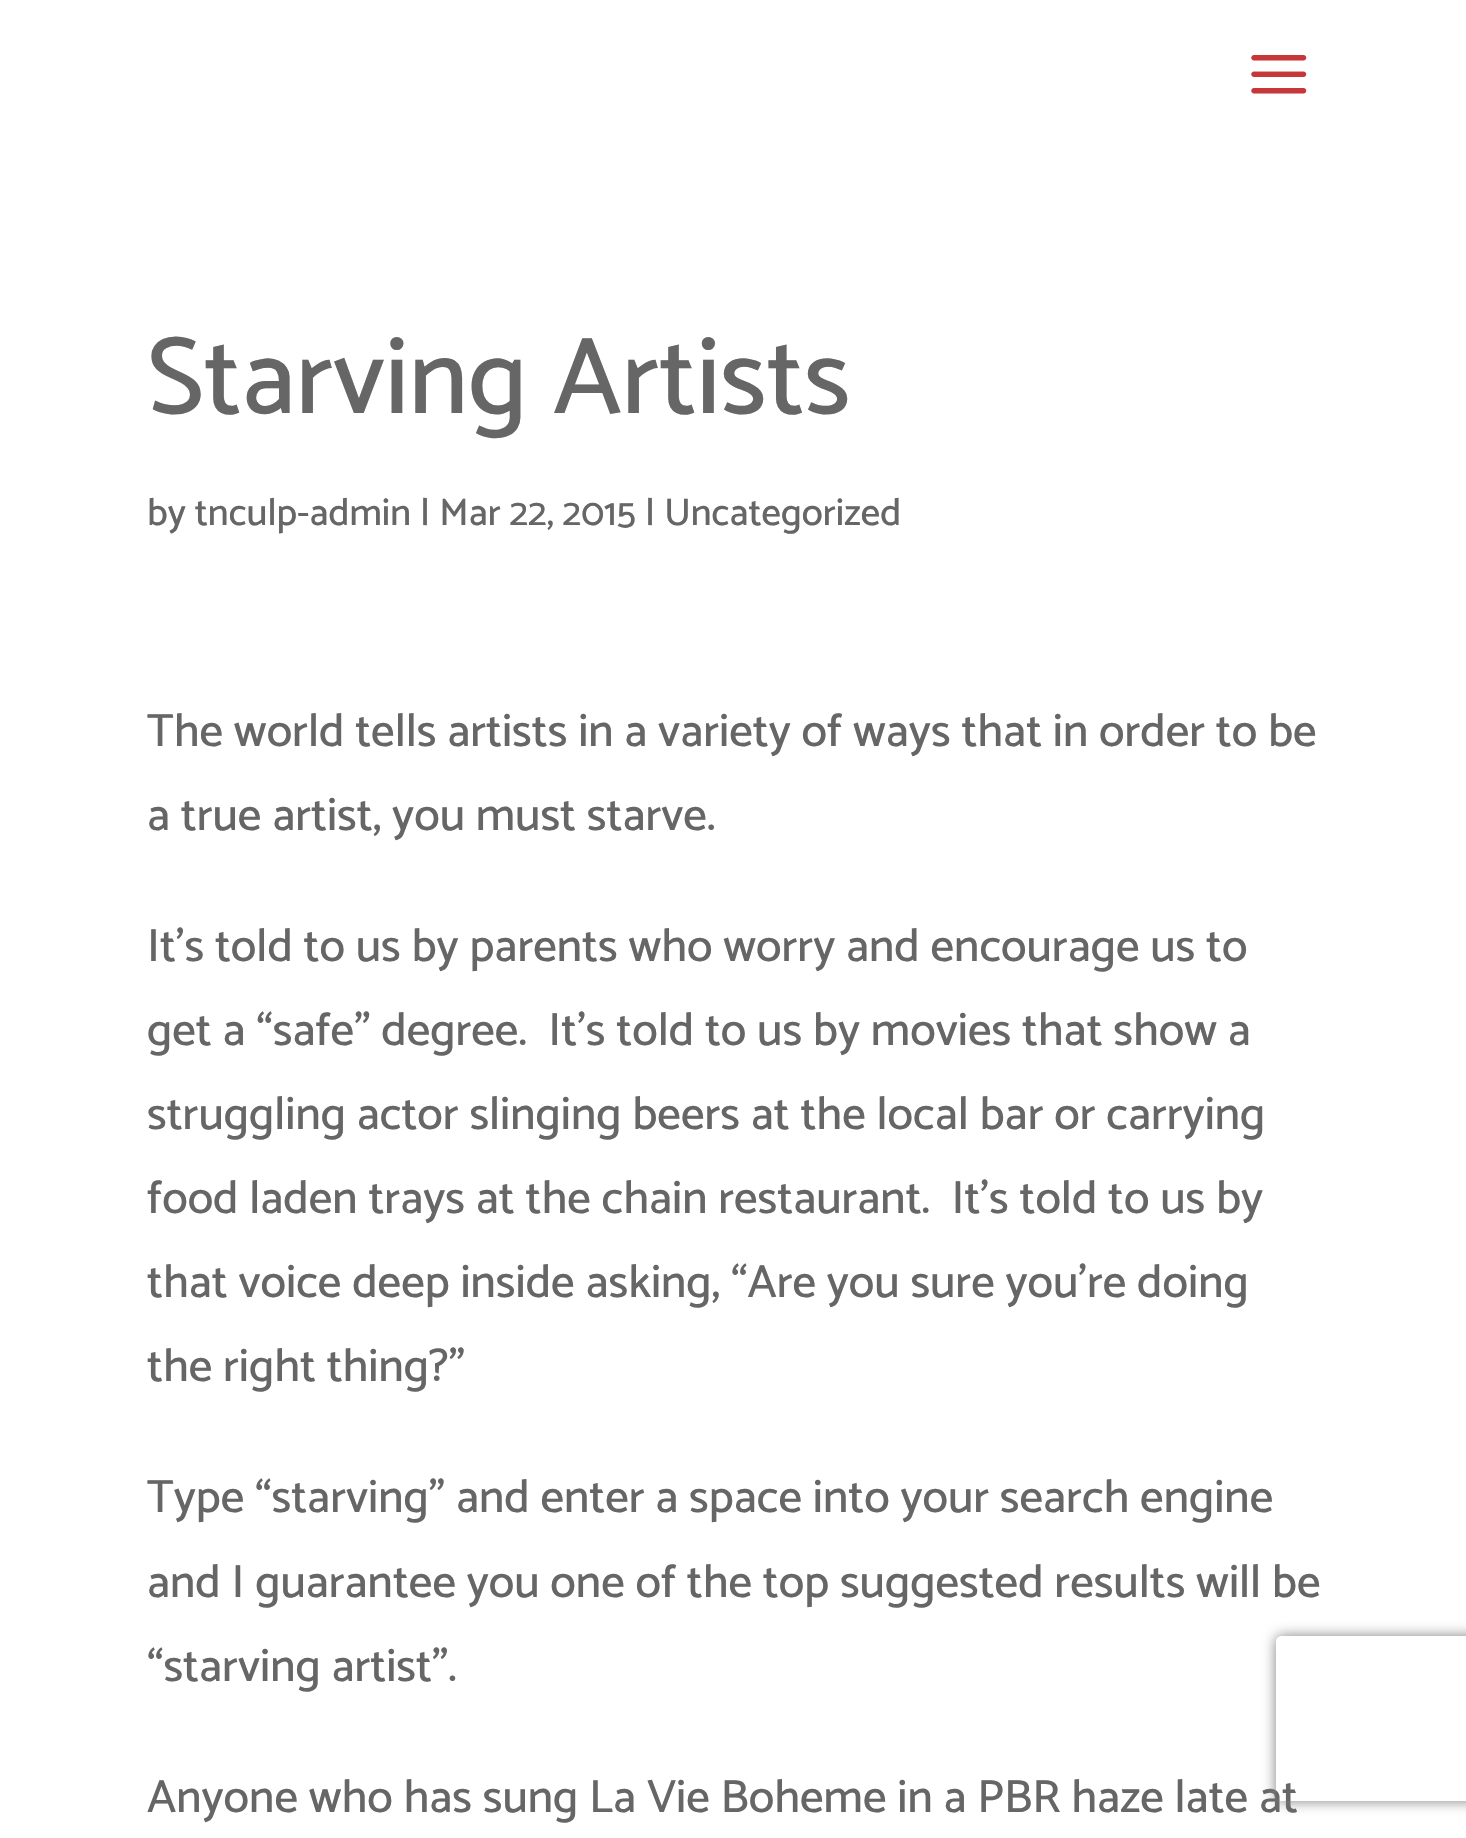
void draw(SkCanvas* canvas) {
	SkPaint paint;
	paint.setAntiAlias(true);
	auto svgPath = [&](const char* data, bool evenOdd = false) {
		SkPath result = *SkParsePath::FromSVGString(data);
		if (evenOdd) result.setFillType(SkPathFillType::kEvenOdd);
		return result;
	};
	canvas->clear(0xffffffff);
	canvas->drawImageRect(SkImages::DeferredFromEncodedData(SkData::MakeFromFileName("img1.png")), SkRect::MakeXYWH(1251, 55, 56, 39), SkSamplingOptions());
	SkFont f1(fontMgr->matchFamilyStyle("Catamaran", SkFontStyle(100, SkFontStyle::kNormal_Width, SkFontStyle::kUpright_Slant)), 110);
	f1.setSubpixel(true);
	paint.setColor(0xff666666);
	canvas->drawString("Starving Artists", 147, 413, f1, paint);
	SkFont f2(fontMgr->matchFamilyStyle("Catamaran", SkFontStyle(100, SkFontStyle::kNormal_Width, SkFontStyle::kUpright_Slant)), 38.5);
	f2.setSubpixel(true);
	canvas->drawString("by tnculp-admin | Mar 22, 2015 | Uncategorized", 147, 525, f2, paint);
	SkFont f3(fontMgr->matchFamilyStyle("Catamaran", SkFontStyle(100, SkFontStyle::kNormal_Width, SkFontStyle::kUpright_Slant)), 46.75);
	f3.setSubpixel(true);
	canvas->drawString("The world tells artists in a variety of ways that in order to be", 147, 746, f3, paint);
	canvas->drawString("a true artist, you must starve.", 147, 830, f3, paint);
	canvas->drawString("It’s told to us by parents who worry and encourage us to", 147, 961, f3, paint);
	canvas->drawString("get a “safe” degree.  It’s told to us by movies that show a", 147, 1045, f3, paint);
	canvas->drawString("struggling actor slinging beers at the local bar or carrying", 147, 1129, f3, paint);
	canvas->drawString("food laden trays at the chain restaurant.  It’s told to us by", 147, 1213, f3, paint);
	canvas->drawString("that voice deep inside asking, “Are you sure you’re doing", 147, 1297, f3, paint);
	canvas->drawString("the right thing?”", 147, 1381, f3, paint);
	canvas->drawString("Type “starving” and enter a space into your search engine", 147, 1512, f3, paint);
	canvas->drawString("and I guarantee you one of the top suggested results will be", 147, 1597, f3, paint);
	canvas->drawString("“starving artist”.", 147, 1681, f3, paint);
	canvas->drawString("Anyone who has sung La Vie Boheme in a PBR haze late at", 147, 1812, f3, paint);
	canvas->save();
	canvas->clipPath(svgPath("M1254 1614H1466V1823H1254ZM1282 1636H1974C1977.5 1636 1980 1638.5 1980 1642V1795C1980 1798.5 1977.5 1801 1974 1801H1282C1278.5 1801 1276 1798.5 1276 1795V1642C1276 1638.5 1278.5 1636 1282 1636Z", true), true);
	paint.setColor(0xff808080);
	paint.setMaskFilter(SkMaskFilter::MakeBlur(kNormal_SkBlurStyle, 7));
	canvas->drawRoundRect(SkRect::MakeXYWH(1276, 1636, 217, 165), 6, 6, paint);
	paint.setMaskFilter(nullptr);
	canvas->restore();
}
